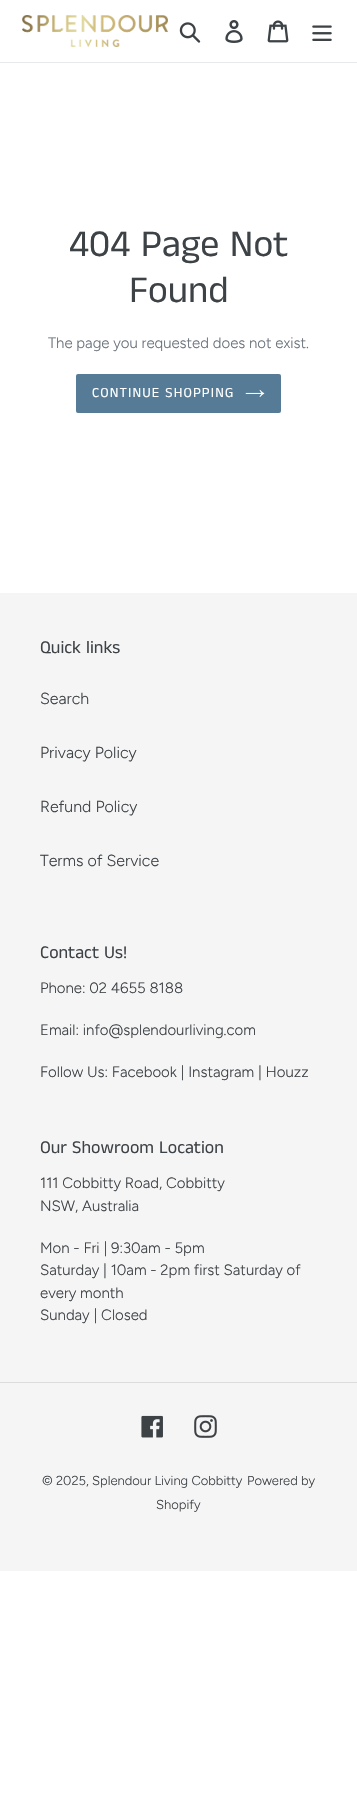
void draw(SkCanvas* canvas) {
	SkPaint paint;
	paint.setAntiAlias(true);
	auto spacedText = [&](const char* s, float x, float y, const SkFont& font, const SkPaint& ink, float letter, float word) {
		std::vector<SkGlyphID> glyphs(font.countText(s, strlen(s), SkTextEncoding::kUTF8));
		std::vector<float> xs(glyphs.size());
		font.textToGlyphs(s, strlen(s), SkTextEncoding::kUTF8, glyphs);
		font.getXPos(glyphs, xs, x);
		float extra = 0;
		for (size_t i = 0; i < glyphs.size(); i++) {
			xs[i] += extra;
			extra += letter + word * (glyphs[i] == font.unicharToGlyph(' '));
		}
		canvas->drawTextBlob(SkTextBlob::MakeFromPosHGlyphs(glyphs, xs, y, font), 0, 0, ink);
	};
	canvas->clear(0xffffffff);
	paint.setColor(0xffe8e9eb);
	canvas->drawRect(SkRect::MakeXYWH(0, 62, 357, 1), paint);
	canvas->drawImageRect(SkImages::DeferredFromEncodedData(SkData::MakeFromFileName("img1.png")), SkRect::MakeXYWH(22, 15, 146, 32), SkSamplingOptions());
	canvas->drawImageRect(SkImages::DeferredFromEncodedData(SkData::MakeFromFileName("img2.png")), SkRect::MakeXYWH(179, 22, 22, 21), SkSamplingOptions());
	canvas->drawImageRect(SkImages::DeferredFromEncodedData(SkData::MakeFromFileName("img3.png")), SkRect::MakeXYWH(225, 20, 18, 23), SkSamplingOptions());
	canvas->drawImageRect(SkImages::DeferredFromEncodedData(SkData::MakeFromFileName("img4.png")), SkRect::MakeXYWH(267, 20, 22, 23), SkSamplingOptions());
	canvas->drawImageRect(SkImages::DeferredFromEncodedData(SkData::MakeFromFileName("img5.png")), SkRect::MakeXYWH(312, 25, 20, 16), SkSamplingOptions());
	SkFont f1(fontMgr->matchFamilyStyle("Anek Tamil", SkFontStyle::Normal()), 38);
	f1.setSubpixel(true);
	paint.setColor(0xff3d4246);
	canvas->drawString("404 Page Not", 69, 256, f1, paint);
	canvas->drawString("Found", 129, 302, f1, paint);
	SkFont f2(fontMgr->matchFamilyStyle("Figtree", SkFontStyle(300, SkFontStyle::kNormal_Width, SkFontStyle::kUpright_Slant)), 15);
	f2.setSubpixel(true);
	paint.setColor(0xff69727b);
	canvas->drawString("The page you requested does not exist.", 48, 348, f2, paint);
	paint.setColor(0xff557b97);
	canvas->drawRoundRect(SkRect::MakeXYWH(76, 374, 205, 39), 2, 2, paint);
	SkFont f3(fontMgr->matchFamilyStyle("Anek Tamil", SkFontStyle::Normal()), 14);
	f3.setSubpixel(true);
	paint.setColor(0xffffffff);
	spacedText("CONTINUE SHOPPING", 92, 397, f3, paint, 1.1, 0);
	canvas->drawImageRect(SkImages::DeferredFromEncodedData(SkData::MakeFromFileName("img6.png")), SkRect::MakeXYWH(245, 389, 20, 8), SkSamplingOptions());
	paint.setColor(0xfff5f5f5);
	canvas->drawRect(SkRect::MakeXYWH(0, 593, 357, 978), paint);
	SkFont f4(fontMgr->matchFamilyStyle("Anek Tamil", SkFontStyle::Normal()), 18);
	f4.setSubpixel(true);
	paint.setColor(0xff3d4246);
	canvas->drawString("Quick links", 40, 653, f4, paint);
	SkFont f5(fontMgr->matchFamilyStyle("Figtree", SkFontStyle(300, SkFontStyle::kNormal_Width, SkFontStyle::kUpright_Slant)), 16);
	f5.setSubpixel(true);
	canvas->drawString("Search", 40, 704, f5, paint);
	canvas->drawString("Privacy Policy", 40, 758, f5, paint);
	canvas->drawString("Refund Policy", 40, 812, f5, paint);
	canvas->drawString("Terms of Service", 40, 866, f5, paint);
	canvas->drawString("Contact Us!", 40, 958, f4, paint);
	canvas->drawString("Phone: 02 4655 8188", 40, 993, f2, paint);
	canvas->drawString("Email: info@splendourliving.com", 40, 1035, f2, paint);
	canvas->drawString("Follow Us: Facebook | Instagram | Houzz", 40, 1077, f2, paint);
	canvas->drawString("Our Showroom Location", 40, 1153, f4, paint);
	canvas->drawString("111 Cobbitty Road, Cobbitty", 40, 1188, f2, paint);
	canvas->drawString("NSW, Australia", 40, 1211, f2, paint);
	canvas->drawString("Mon - Fri | 9:30am - 5pm", 40, 1253, f2, paint);
	canvas->drawString("Saturday | 10am - 2pm first Saturday of", 40, 1275, f2, paint);
	canvas->drawString("every month", 40, 1298, f2, paint);
	canvas->drawString("Sunday | Closed", 40, 1320, f2, paint);
	paint.setColor(0xffdcdcdc);
	canvas->drawRect(SkRect::MakeXYWH(0, 1382, 357, 1), paint);
	canvas->drawImageRect(SkImages::DeferredFromEncodedData(SkData::MakeFromFileName("img7.png")), SkRect::MakeXYWH(141, 1415, 22, 23), SkSamplingOptions());
	canvas->drawImageRect(SkImages::DeferredFromEncodedData(SkData::MakeFromFileName("img8.png")), SkRect::MakeXYWH(194, 1415, 23, 23), SkSamplingOptions());
	SkFont f6(fontMgr->matchFamilyStyle("Figtree", SkFontStyle(300, SkFontStyle::kNormal_Width, SkFontStyle::kUpright_Slant)), 13);
	f6.setSubpixel(true);
	paint.setColor(0xff3d4246);
	canvas->drawString("© 2025, Splendour Living Cobbitty", 42, 1485, f6, paint);
	canvas->drawString("Powered by", 247, 1485, f6, paint);
	canvas->drawString("Shopify", 156, 1509, f6, paint);
}
